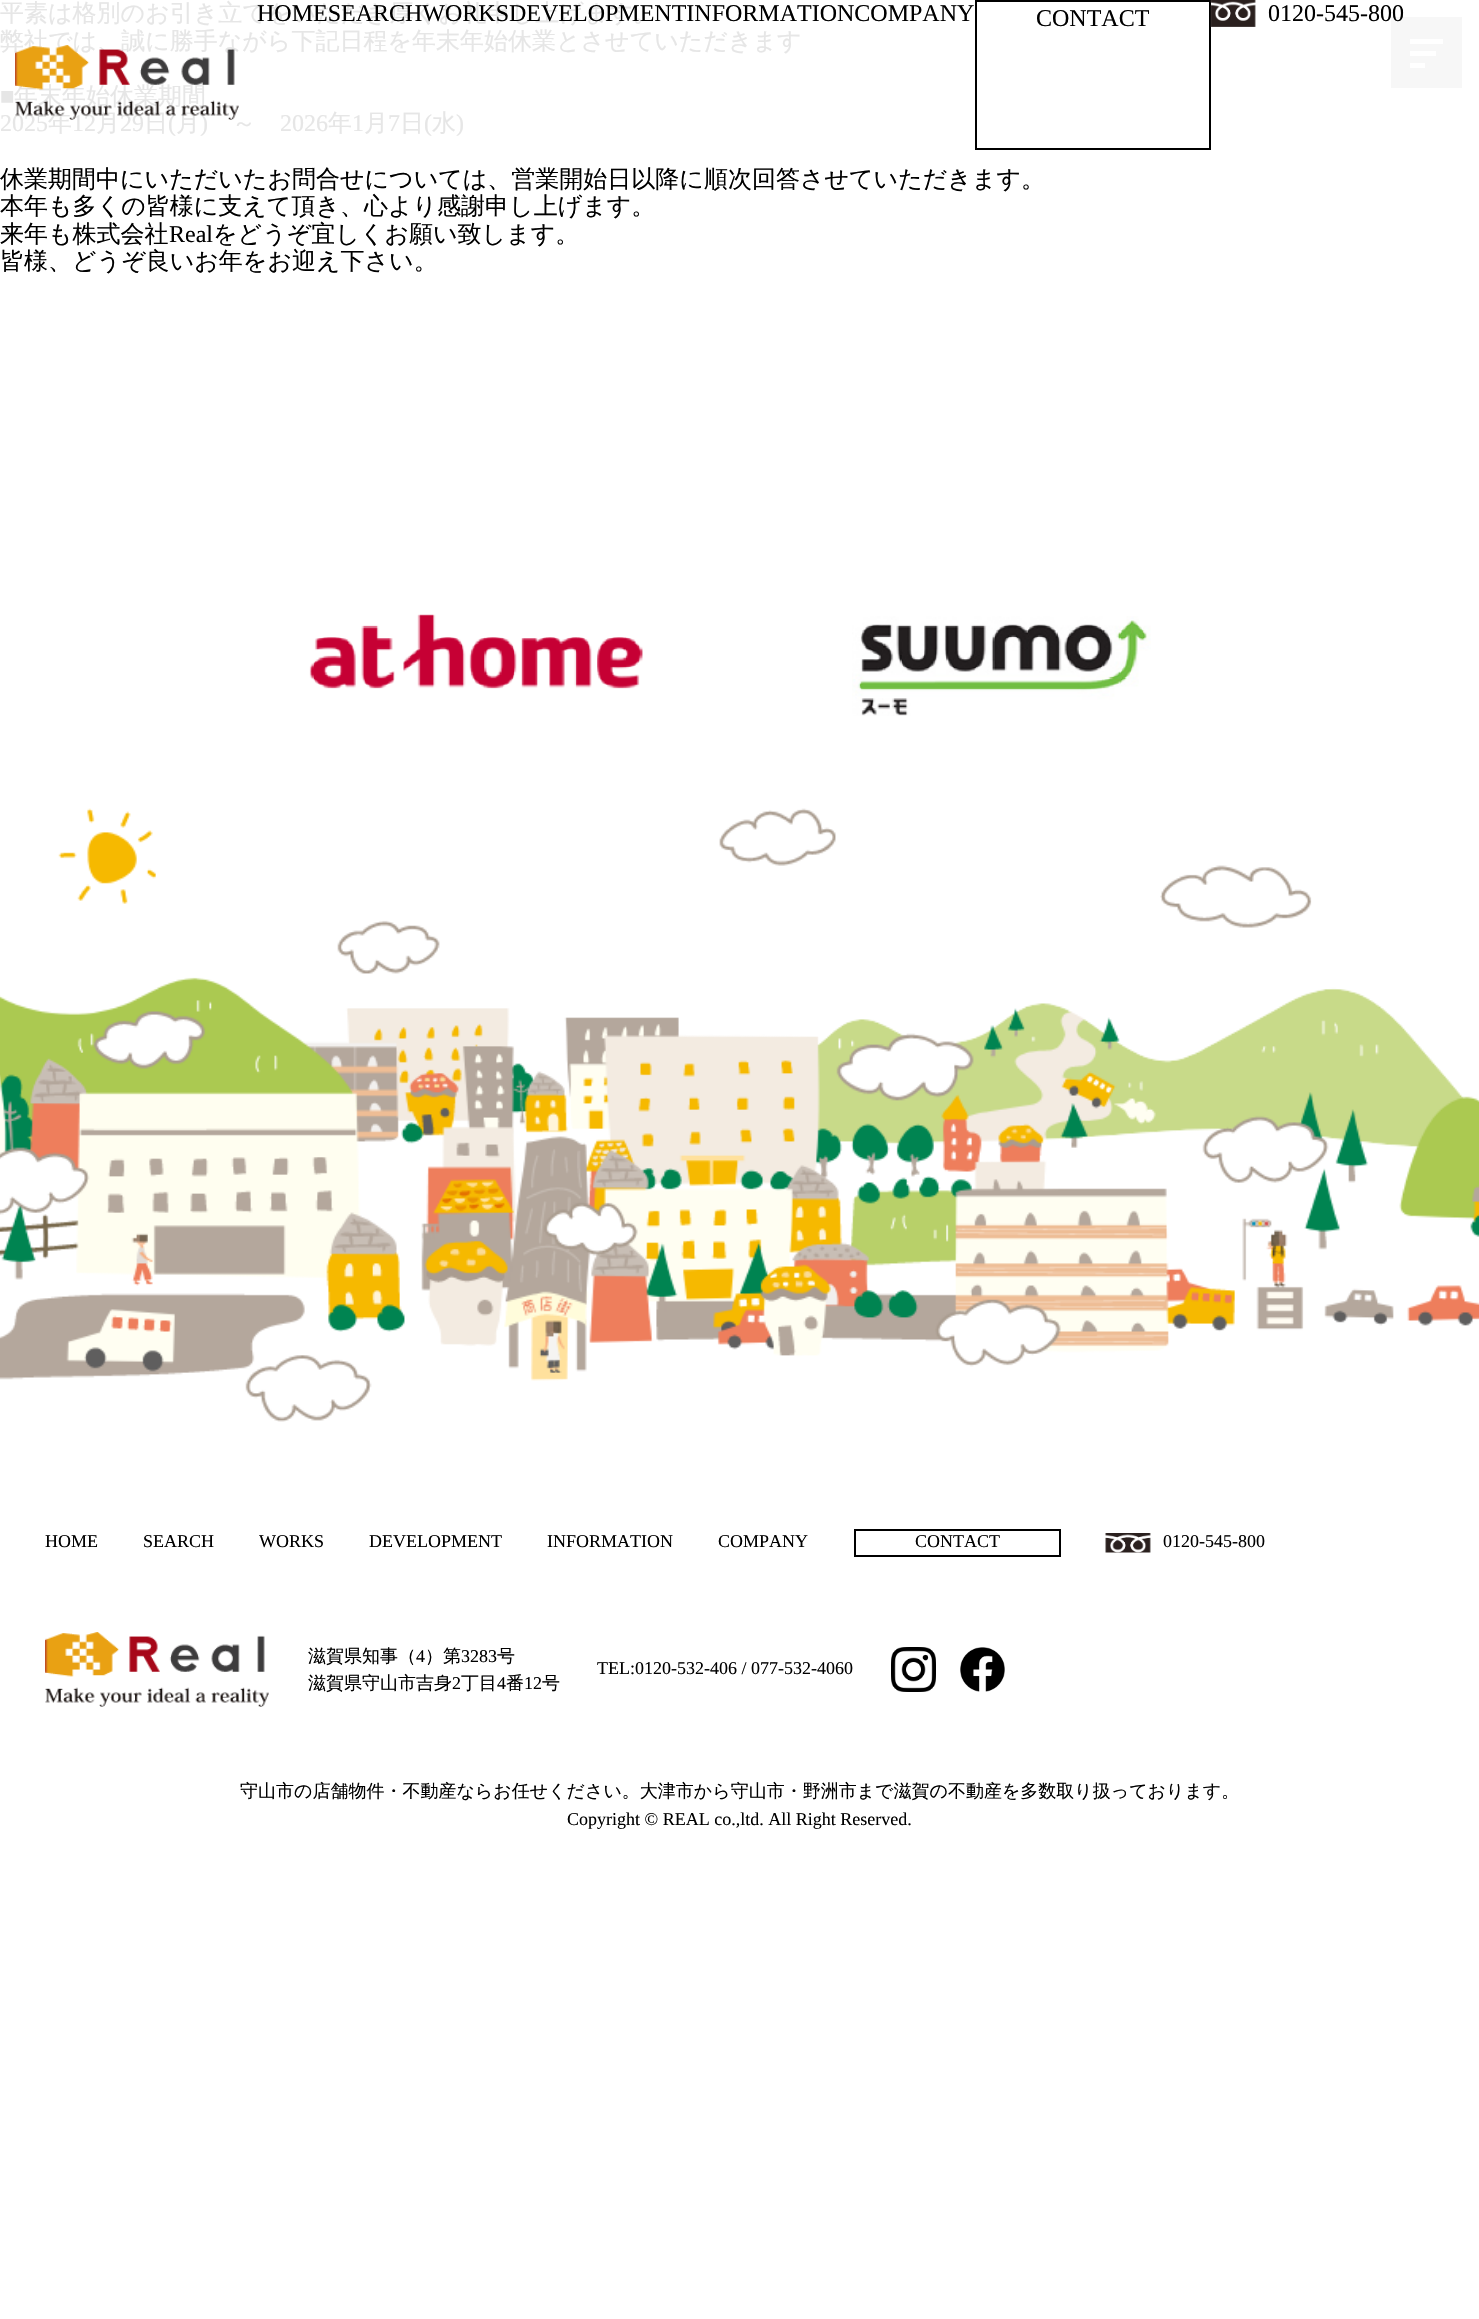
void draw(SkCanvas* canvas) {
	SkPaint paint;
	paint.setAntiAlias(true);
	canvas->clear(0xffffffff);
	SkFont f1(fontMgr->matchFamilyStyle("WenQuanYi Zen Hei", SkFontStyle(500, SkFontStyle::kNormal_Width, SkFontStyle::kUpright_Slant)), 24);
	f1.setSubpixel(true);
	paint.setColor(0xffe6e6e6);
	canvas->drawString("平素は格別のお引き立てをいただき厚くお礼申し上げます。", 0, 21, f1, paint);
	canvas->drawString("弊社では、誠に勝手ながら下記日程を年末年始休業とさせていただきます", 0, 49, f1, paint);
	SkFont f2(fontMgr->matchFamilyStyle("Liberation Serif", SkFontStyle::Normal()), 24);
	f2.setSubpixel(true);
	canvas->drawString("■", 0, 104, f2, paint);
	canvas->drawString("年末年始休業期間", 14, 104, f1, paint);
	canvas->drawString("2025", 0, 131, f2, paint);
	canvas->drawString("年", 48, 131, f1, paint);
	canvas->drawString("12", 72, 131, f2, paint);
	canvas->drawString("月", 96, 131, f1, paint);
	canvas->drawString("29", 120, 131, f2, paint);
	canvas->drawString("日", 144, 131, f1, paint);
	canvas->drawString("(", 168, 131, f2, paint);
	canvas->drawString("月", 176, 131, f1, paint);
	canvas->drawString(")", 200, 131, f2, paint);
	canvas->drawString("～", 232, 131, f1, paint);
	canvas->drawString("2026", 280, 131, f2, paint);
	canvas->drawString("年", 328, 131, f1, paint);
	canvas->drawString("1", 352, 131, f2, paint);
	canvas->drawString("月", 364, 131, f1, paint);
	canvas->drawString("7", 388, 131, f2, paint);
	canvas->drawString("日", 400, 131, f1, paint);
	canvas->drawString("(", 424, 131, f2, paint);
	canvas->drawString("水", 432, 131, f1, paint);
	canvas->drawString(")", 456, 131, f2, paint);
	paint.setColor(0xff000000);
	canvas->drawString("休業期間中にいただいたお問合せについては、営業開始日以降に順次回答させていただきます。", 0, 187, f1, paint);
	canvas->drawString("本年も多くの皆様に支えて頂き、心より感謝申し上げます。", 0, 214, f1, paint);
	canvas->drawString("来年も株式会社", 0, 242, f1, paint);
	canvas->drawString("Real", 169, 242, f2, paint);
	canvas->drawString("をどうぞ宜しくお願い致します。", 213, 242, f1, paint);
	canvas->drawString("皆様、どうぞ良いお年をお迎え下さい。", 0, 269, f1, paint);
	canvas->drawImageRect(SkImages::DeferredFromEncodedData(SkData::MakeFromFileName("img1.png")), SkRect::MakeXYWH(309, 614, 334, 75), SkSamplingOptions());
	canvas->drawImageRect(SkImages::DeferredFromEncodedData(SkData::MakeFromFileName("img2.png")), SkRect::MakeXYWH(852, 616, 299, 100), SkSamplingOptions());
	canvas->drawImageRect(SkImages::DeferredFromEncodedData(SkData::MakeFromFileName("img3.png")), SkRect::MakeXYWH(0, 808, 1479, 614), SkSamplingOptions());
	SkFont f3(fontMgr->matchFamilyStyle("Liberation Serif", SkFontStyle::Normal()), 18);
	f3.setSubpixel(true);
	canvas->drawString("HOME", 45, 1547, f3, paint);
	canvas->drawString("SEARCH", 143, 1547, f3, paint);
	canvas->drawString("WORKS", 259, 1547, f3, paint);
	canvas->drawString("DEVELOPMENT", 369, 1547, f3, paint);
	canvas->drawString("INFORMATION", 547, 1547, f3, paint);
	canvas->drawString("COMPANY", 718, 1547, f3, paint);
	paint.setStroke(true);
	paint.setStrokeWidth(2);
	canvas->drawRect(SkRect::MakeXYWH(855, 1530, 205, 26), paint);
	paint.setStroke(false);
	canvas->drawString("CONTACT", 915, 1547, f3, paint);
	canvas->drawImageRect(SkImages::DeferredFromEncodedData(SkData::MakeFromFileName("img4.png")), SkRect::MakeXYWH(1105, 1533, 46, 20), SkSamplingOptions());
	canvas->drawString("0120-545-800", 1163, 1547, f3, paint);
	canvas->drawImageRect(SkImages::DeferredFromEncodedData(SkData::MakeFromFileName("img5.png")), SkRect::MakeXYWH(45, 1632, 224, 75), SkSamplingOptions());
	SkFont f4(fontMgr->matchFamilyStyle("WenQuanYi Zen Hei", SkFontStyle(500, SkFontStyle::kNormal_Width, SkFontStyle::kUpright_Slant)), 18);
	f4.setSubpixel(true);
	canvas->drawString("滋賀県知事（", 308, 1662, f4, paint);
	canvas->drawString("4", 416, 1662, f3, paint);
	canvas->drawString("）第", 425, 1662, f4, paint);
	canvas->drawString("3283", 461, 1662, f3, paint);
	canvas->drawString("号", 497, 1662, f4, paint);
	canvas->drawString("滋賀県守山市吉身", 308, 1689, f4, paint);
	canvas->drawString("2", 452, 1689, f3, paint);
	canvas->drawString("丁目", 461, 1689, f4, paint);
	canvas->drawString("4", 497, 1689, f3, paint);
	canvas->drawString("番", 506, 1689, f4, paint);
	canvas->drawString("12", 524, 1689, f3, paint);
	canvas->drawString("号", 542, 1689, f4, paint);
	canvas->drawString("TEL:0120-532-406 / 077-532-4060", 597, 1674, f3, paint);
	canvas->drawImageRect(SkImages::DeferredFromEncodedData(SkData::MakeFromFileName("img6.png")), SkRect::MakeXYWH(891, 1647, 45, 45), SkSamplingOptions());
	canvas->drawImageRect(SkImages::DeferredFromEncodedData(SkData::MakeFromFileName("img7.png")), SkRect::MakeXYWH(960, 1647, 45, 45), SkSamplingOptions());
	canvas->drawString("守山市の店舗物件・不動産ならお任せください。大津市から守山市・野洲市まで滋賀の不動産を多数取り扱っております。", 240, 1797, f4, paint);
	canvas->drawString("Copyright © REAL co.,ltd. All Right Reserved.", 567, 1825, f3, paint);
	canvas->drawString("HOMESEARCHWORKSDEVELOPMENTINFORMATIONCOMPANY", 257, 21, f2, paint);
	paint.setStroke(true);
	canvas->drawRect(SkRect::MakeXYWH(976, 1, 234, 148), paint);
	paint.setStroke(false);
	canvas->drawString("CONTACT", 1036, 26, f2, paint);
	canvas->drawImageRect(SkImages::DeferredFromEncodedData(SkData::MakeFromFileName("img8.png")), SkRect::MakeXYWH(1210, 0, 46, 27), SkSamplingOptions());
	paint.setColor(0xfff7f7f7);
	canvas->drawRect(SkRect::MakeXYWH(1391, 17, 71, 71), paint);
	paint.setColor(0xff000000);
	canvas->drawString("0120-545-800", 1268, 21, f2, paint);
	canvas->drawImageRect(SkImages::DeferredFromEncodedData(SkData::MakeFromFileName("img9.png")), SkRect::MakeXYWH(15, 45, 224, 75), SkSamplingOptions());
	paint.setColor(0xffffffff);
	canvas->drawRect(SkRect::MakeXYWH(1410, 39, 33, 5), paint);
	canvas->drawRect(SkRect::MakeXYWH(1410, 51, 26, 5), paint);
	canvas->drawRect(SkRect::MakeXYWH(1410, 63, 15, 5), paint);
}
